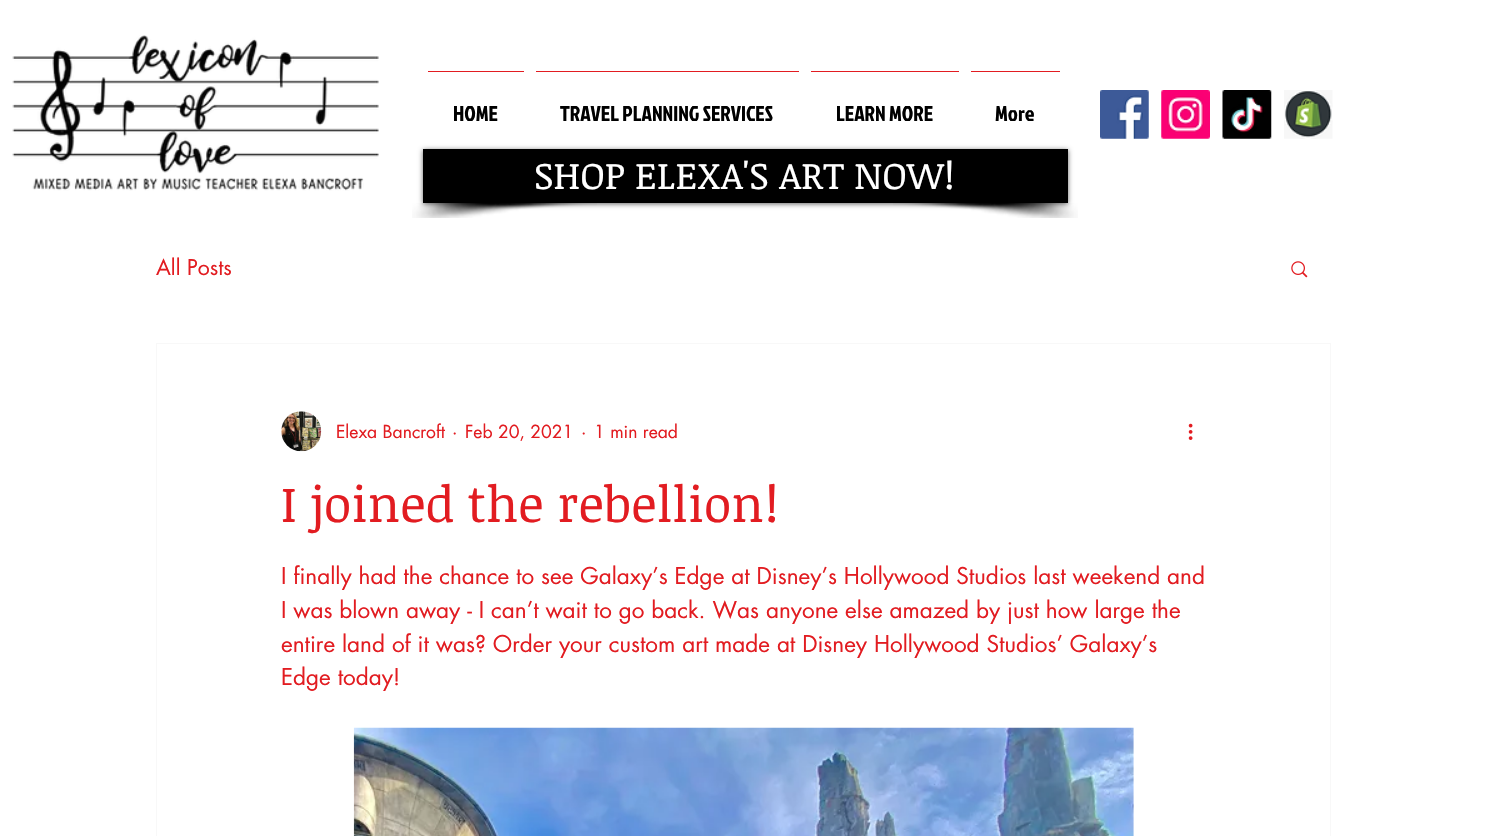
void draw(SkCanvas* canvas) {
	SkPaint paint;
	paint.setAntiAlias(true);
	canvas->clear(0xffffffff);
	canvas->drawImageRect(SkImages::DeferredFromEncodedData(SkData::MakeFromFileName("img1.png")), SkRect::MakeXYWH(12, 35, 367, 156), SkSamplingOptions());
	paint.setColor(0xffe21c21);
	canvas->drawRect(SkRect::MakeXYWH(428, 71, 96, 1), paint);
	SkFont f1(fontMgr->matchFamilyStyle("Jockey One", SkFontStyle::Normal()), 21.25);
	f1.setSubpixel(true);
	paint.setColor(0xff000000);
	canvas->drawString("HOME", 453, 121, f1, paint);
	paint.setColor(0xffe21c21);
	canvas->drawRect(SkRect::MakeXYWH(536, 71, 263, 1), paint);
	paint.setColor(0xff000000);
	canvas->drawString("TRAVEL PLANNING SERVICES", 560, 121, f1, paint);
	paint.setColor(0xffe21c21);
	canvas->drawRect(SkRect::MakeXYWH(811, 71, 148, 1), paint);
	paint.setColor(0xff000000);
	canvas->drawString("LEARN MORE", 836, 121, f1, paint);
	paint.setColor(0xffe21c21);
	canvas->drawRect(SkRect::MakeXYWH(971, 71, 89, 1), paint);
	paint.setColor(0xff000000);
	canvas->drawString("More", 995, 121, f1, paint);
	canvas->drawImageRect(SkImages::DeferredFromEncodedData(SkData::MakeFromFileName("img2.png")), SkRect::MakeXYWH(1100, 90, 49, 49), SkSamplingOptions());
	canvas->drawImageRect(SkImages::DeferredFromEncodedData(SkData::MakeFromFileName("img3.png")), SkRect::MakeXYWH(1161, 90, 49, 49), SkSamplingOptions());
	canvas->drawImageRect(SkImages::DeferredFromEncodedData(SkData::MakeFromFileName("img4.png")), SkRect::MakeXYWH(1222, 90, 50, 49), SkSamplingOptions());
	canvas->drawImageRect(SkImages::DeferredFromEncodedData(SkData::MakeFromFileName("img5.png")), SkRect::MakeXYWH(1284, 90, 49, 49), SkSamplingOptions());
	canvas->drawImageRect(SkImages::DeferredFromEncodedData(SkData::MakeFromFileName("img6.png")), SkRect::MakeXYWH(412, 203, 185, 15), SkSamplingOptions());
	canvas->drawImageRect(SkImages::DeferredFromEncodedData(SkData::MakeFromFileName("img7.png")), SkRect::MakeXYWH(893, 203, 185, 15), SkSamplingOptions());
	paint.setColor(0x99000000);
	paint.setMaskFilter(SkMaskFilter::MakeBlur(kNormal_SkBlurStyle, 2.5));
	canvas->drawRect(SkRect::MakeXYWH(423, 150, 645, 54), paint);
	paint.setMaskFilter(nullptr);
	paint.setColor(0xff000000);
	canvas->drawRect(SkRect::MakeXYWH(423, 149, 645, 54), paint);
	SkFont f2(fontMgr->matchFamilyStyle("Noticia Text", SkFontStyle::Normal()), 37.5);
	f2.setSubpixel(true);
	paint.setColor(0xffffffff);
	canvas->drawString("SHOP ELEXA'S ART NOW!", 534, 189, f2, paint);
	SkFont f3(fontMgr->matchFamilyStyle("futura", SkFontStyle::Normal()), 21.25);
	f3.setSubpixel(true);
	paint.setColor(0xffe21c21);
	canvas->drawString("All Posts", 156, 275, f3, paint);
	canvas->drawImageRect(SkImages::DeferredFromEncodedData(SkData::MakeFromFileName("img8.png")), SkRect::MakeXYWH(1291, 261, 17, 17), SkSamplingOptions());
	paint.setStroke(true);
	paint.setStrokeWidth(1);
	paint.setColor(0xfff8f8f8);
	canvas->drawRect(SkRect::MakeXYWH(156.5, 343.5, 1174, 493), paint);
	canvas->drawImageRect(SkImages::DeferredFromEncodedData(SkData::MakeFromFileName("img9.png")), SkRect::MakeXYWH(281, 411, 41, 41), SkSamplingOptions());
	SkFont f4(fontMgr->matchFamilyStyle("futura", SkFontStyle::Normal()), 17.5);
	f4.setSubpixel(true);
	paint.setStroke(false);
	paint.setColor(0xffe21c21);
	canvas->drawString("Elexa Bancroft", 336, 438, f4, paint);
	canvas->drawString("·", 452, 438, f4, paint);
	canvas->drawString("Feb 20, 2021", 465, 438, f4, paint);
	canvas->drawString("·", 581, 438, f4, paint);
	canvas->drawString("1 min read", 594, 438, f4, paint);
	canvas->drawImageRect(SkImages::DeferredFromEncodedData(SkData::MakeFromFileName("img10.png")), SkRect::MakeXYWH(1188, 423, 5, 17), SkSamplingOptions());
	SkFont f5(fontMgr->matchFamilyStyle("Noticia Text", SkFontStyle::Normal()), 50);
	f5.setSubpixel(true);
	canvas->drawString("I joined the rebellion!", 281, 522, f5, paint);
	SkFont f6(fontMgr->matchFamilyStyle("futura", SkFontStyle::Normal()), 22.5);
	f6.setSubpixel(true);
	canvas->drawString("I finally had the chance to see Galaxy’s Edge at Disney’s Hollywood Studios last weekend and", 281, 584, f6, paint);
	canvas->drawString("I was blown away - I can’t wait to go back. Was anyone else amazed by just how large the", 281, 618, f6, paint);
	canvas->drawString("entire land of it was? Order your custom art made at Disney Hollywood Studios’ Galaxy’s", 281, 652, f6, paint);
	canvas->drawString("Edge today!", 281, 685, f6, paint);
	canvas->drawImageRect(SkImages::DeferredFromEncodedData(SkData::MakeFromFileName("img11.png")), SkRect::MakeXYWH(353, 727, 781, 109), SkSamplingOptions());
}
